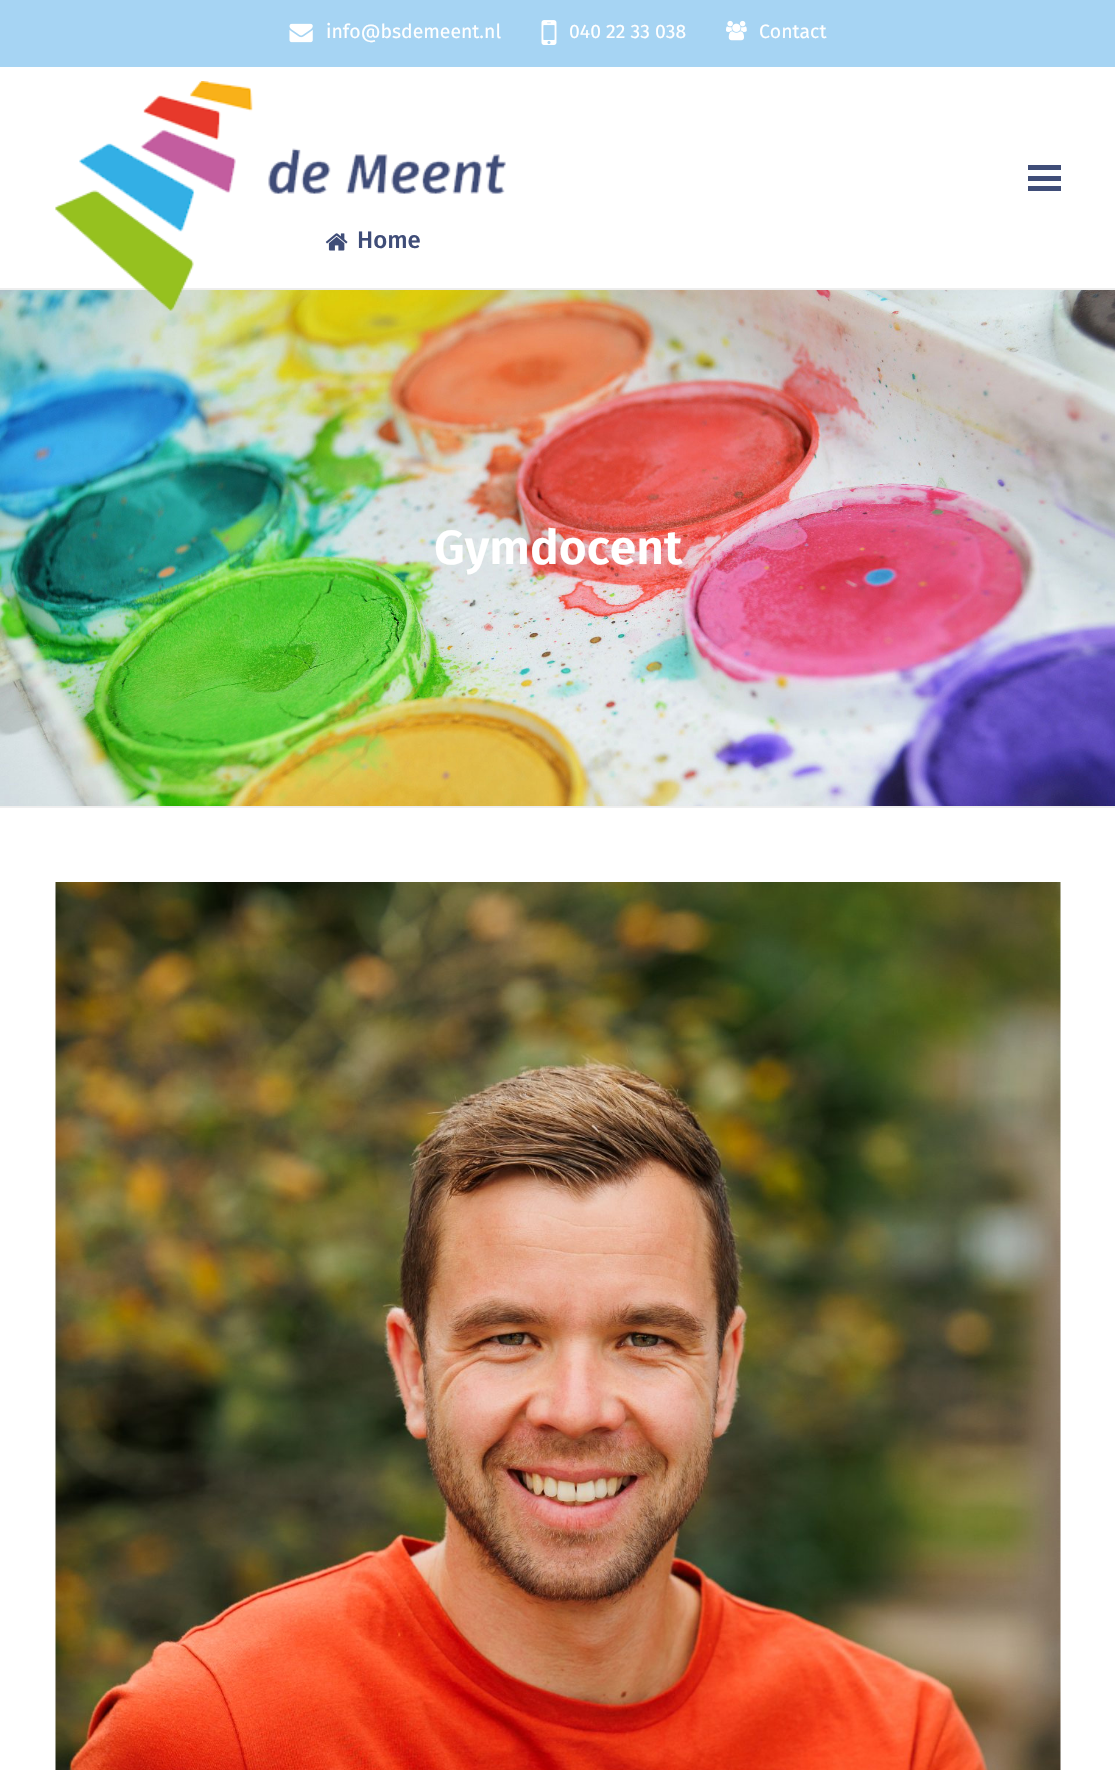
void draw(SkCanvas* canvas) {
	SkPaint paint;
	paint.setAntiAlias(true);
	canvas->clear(0xffffffff);
	paint.setColor(0xffa6d4f3);
	canvas->drawRect(SkRect::MakeXYWH(0, 0, 1115, 67), paint);
	canvas->drawImageRect(SkImages::DeferredFromEncodedData(SkData::MakeFromFileName("img1.png")), SkRect::MakeXYWH(289, 23, 24, 20), SkSamplingOptions());
	SkFont f1(fontMgr->matchFamilyStyle("Fira Sans", SkFontStyle::Normal()), 19.4);
	f1.setSubpixel(true);
	paint.setColor(0xffffffff);
	canvas->drawString("info@bsdemeent.nl", 326, 38, f1, paint);
	canvas->drawImageRect(SkImages::DeferredFromEncodedData(SkData::MakeFromFileName("img2.png")), SkRect::MakeXYWH(541, 20, 16, 25), SkSamplingOptions());
	canvas->drawString("040 22 33 038", 569, 38, f1, paint);
	canvas->drawImageRect(SkImages::DeferredFromEncodedData(SkData::MakeFromFileName("img3.png")), SkRect::MakeXYWH(726, 20, 21, 21), SkSamplingOptions());
	canvas->drawString("Contact", 759, 38, f1, paint);
	paint.setColor(0xff3f4d78);
	canvas->drawRect(SkRect::MakeXYWH(1028, 176, 33, 5), paint);
	canvas->drawRect(SkRect::MakeXYWH(1028, 165, 33, 5), paint);
	canvas->drawRect(SkRect::MakeXYWH(1028, 186, 33, 5), paint);
	canvas->drawImageRect(SkImages::DeferredFromEncodedData(SkData::MakeFromFileName("img6.png")), SkRect::MakeXYWH(0, 290, 1115, 516), SkSamplingOptions());
	paint.setColor(0xffeeeeee);
	canvas->drawRect(SkRect::MakeXYWH(0, 288, 1115, 2), paint);
	canvas->drawImageRect(SkImages::DeferredFromEncodedData(SkData::MakeFromFileName("img4.png")), SkRect::MakeXYWH(55, 81, 451, 230), SkSamplingOptions());
	canvas->drawImageRect(SkImages::DeferredFromEncodedData(SkData::MakeFromFileName("img5.png")), SkRect::MakeXYWH(325, 233, 23, 18), SkSamplingOptions());
	SkFont f2(fontMgr->matchFamilyStyle("Fira Sans", SkFontStyle(500, SkFontStyle::kNormal_Width, SkFontStyle::kUpright_Slant)), 24);
	f2.setSubpixel(true);
	paint.setColor(0xff3f4d78);
	canvas->drawString("Home", 357, 248, f2, paint);
	paint.setColor(0xffeeeeee);
	canvas->drawRect(SkRect::MakeXYWH(0, 806, 1115, 2), paint);
	SkFont f3(fontMgr->matchFamilyStyle("Fira Sans", SkFontStyle(600, SkFontStyle::kNormal_Width, SkFontStyle::kUpright_Slant)), 48);
	f3.setSubpixel(true);
	paint.setColor(0xffffffff);
	canvas->drawString("Gymdocent", 434, 564, f3, paint);
	canvas->drawImageRect(SkImages::DeferredFromEncodedData(SkData::MakeFromFileName("img7.png")), SkRect::MakeXYWH(55, 882, 1006, 888), SkSamplingOptions());
}
